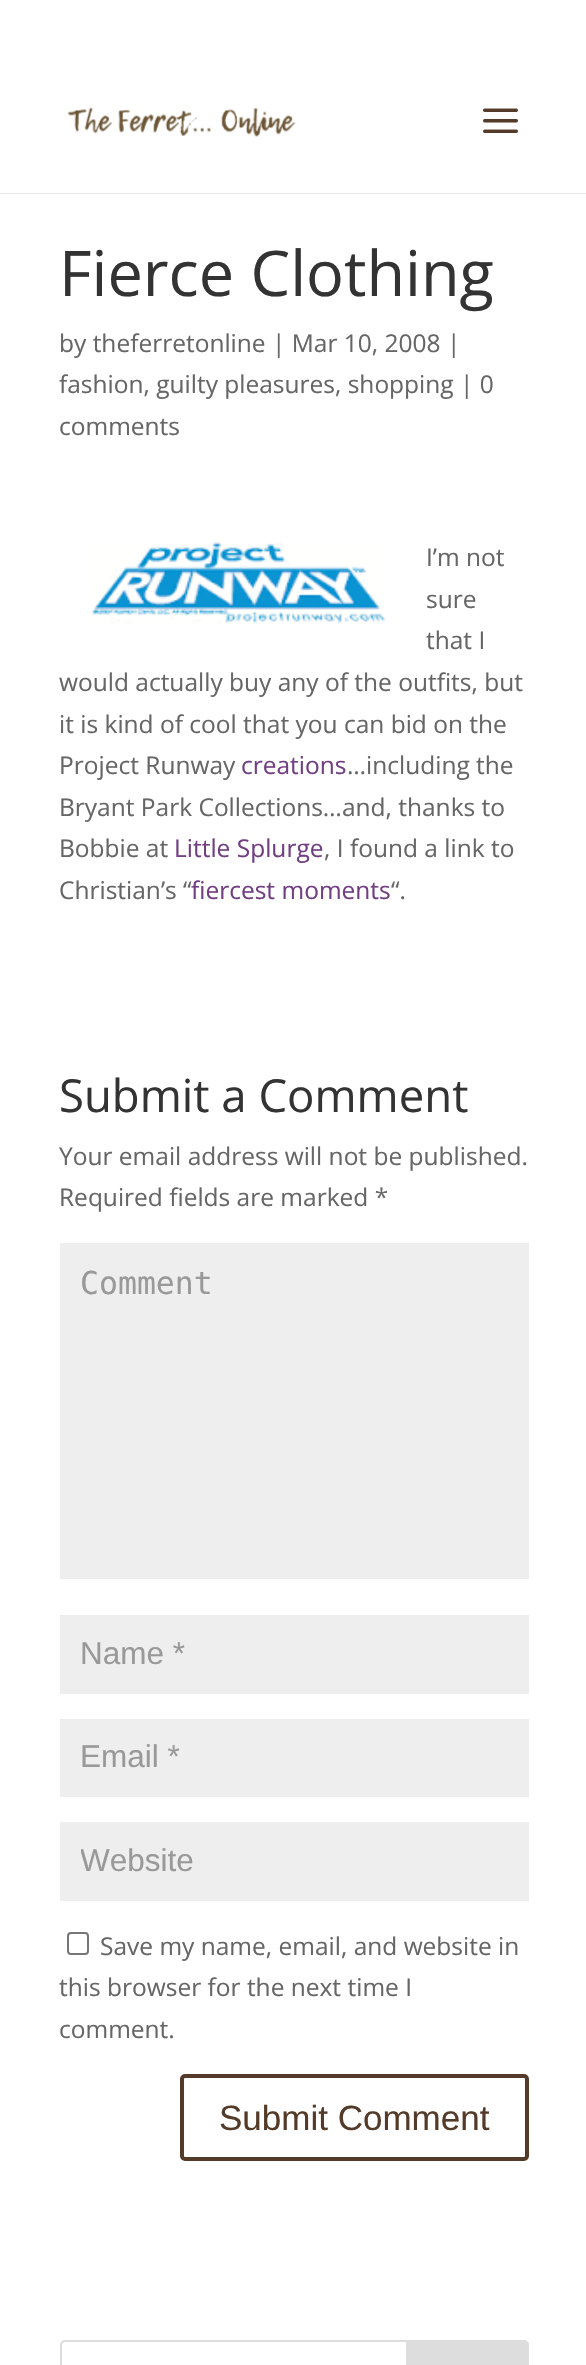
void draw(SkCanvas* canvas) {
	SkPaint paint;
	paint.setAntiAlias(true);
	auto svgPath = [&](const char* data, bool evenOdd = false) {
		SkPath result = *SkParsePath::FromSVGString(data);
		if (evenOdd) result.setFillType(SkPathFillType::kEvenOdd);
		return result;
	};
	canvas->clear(0xffffffff);
	paint.setColor(0xffe6e6e6);
	canvas->drawRect(SkRect::MakeXYWH(0, 193, 586, 1), paint);
	canvas->drawImageRect(SkImages::DeferredFromEncodedData(SkData::MakeFromFileName("img1.png")), SkRect::MakeXYWH(67, 107, 229, 30), SkSamplingOptions());
	canvas->drawImageRect(SkImages::DeferredFromEncodedData(SkData::MakeFromFileName("img2.png")), SkRect::MakeXYWH(483, 108, 35, 25), SkSamplingOptions());
	SkFont f1(fontMgr->matchFamilyStyle("Open Sans", SkFontStyle::Normal()), 63);
	f1.setSubpixel(true);
	paint.setColor(0xff333333);
	canvas->drawString("Fierce Clothing", 59, 296, f1, paint);
	SkFont f2(fontMgr->matchFamilyStyle("Open Sans", SkFontStyle::Normal()), 24.5);
	f2.setSubpixel(true);
	paint.setColor(0xff666666);
	canvas->drawString("by theferretonline | Mar 10, 2008 |", 59, 352, f2, paint);
	canvas->drawString("fashion, guilty pleasures, shopping | 0", 59, 393, f2, paint);
	canvas->drawString("comments", 59, 435, f2, paint);
	canvas->drawImageRect(SkImages::DeferredFromEncodedData(SkData::MakeFromFileName("img3.png")), SkRect::MakeXYWH(92, 542, 294, 82), SkSamplingOptions());
	canvas->drawString("I’m not", 426, 566, f2, paint);
	canvas->drawString("sure", 426, 608, f2, paint);
	canvas->drawString("that I", 426, 649, f2, paint);
	canvas->drawString("would actually buy any of the outfits, but", 59, 691, f2, paint);
	canvas->drawString("it is kind of cool that you can bid on the", 59, 733, f2, paint);
	canvas->drawString("Project Runway", 59, 774, f2, paint);
	paint.setColor(0xff723f82);
	canvas->drawString("creations", 241, 774, f2, paint);
	paint.setColor(0xff666666);
	canvas->drawString("…including the", 347, 774, f2, paint);
	canvas->drawString("Bryant Park Collections…and, thanks to", 59, 816, f2, paint);
	canvas->drawString("Bobbie at", 59, 857, f2, paint);
	paint.setColor(0xff723f82);
	canvas->drawString("Little Splurge", 174, 857, f2, paint);
	paint.setColor(0xff666666);
	canvas->drawString(", I found a link to", 324, 857, f2, paint);
	canvas->drawString("Christian’s “", 59, 899, f2, paint);
	paint.setColor(0xff723f82);
	canvas->drawString("fiercest moments", 191, 899, f2, paint);
	paint.setColor(0xff666666);
	canvas->drawString("“.", 391, 899, f2, paint);
	SkFont f3(fontMgr->matchFamilyStyle("Open Sans", SkFontStyle::Normal()), 45.5);
	f3.setSubpixel(true);
	paint.setColor(0xff333333);
	canvas->drawString("Submit a Comment", 59, 1112, f3, paint);
	paint.setColor(0xff666666);
	canvas->drawString("Your email address will not be published.", 59, 1165, f2, paint);
	canvas->drawString("Required fields are marked *", 59, 1206, f2, paint);
	paint.setColor(0xffeeeeee);
	canvas->drawRect(SkRect::MakeXYWH(60, 1243, 469, 336), paint);
	SkFont f4(fontMgr->matchFamilyStyle("DejaVu Sans Mono", SkFontStyle::Normal()), 31.5);
	f4.setSubpixel(true);
	paint.setColor(0xff999999);
	canvas->drawString("Comment", 80, 1294, f4, paint);
	paint.setColor(0xffeeeeee);
	canvas->drawRect(SkRect::MakeXYWH(60, 1615, 469, 79), paint);
	SkFont f5(fontMgr->matchFamilyStyle("Liberation Sans", SkFontStyle::Normal()), 31.5);
	f5.setSubpixel(true);
	paint.setColor(0xff999999);
	canvas->drawString("Name *", 80, 1664, f5, paint);
	paint.setColor(0xffeeeeee);
	canvas->drawRect(SkRect::MakeXYWH(60, 1719, 469, 78), paint);
	paint.setColor(0xff999999);
	canvas->drawString("Email *", 80, 1767, f5, paint);
	paint.setColor(0xffeeeeee);
	canvas->drawRect(SkRect::MakeXYWH(60, 1822, 469, 79), paint);
	canvas->save();
	canvas->clipRect(SkRect::MakeXYWH(81, 1843, 427, 37));
	paint.setColor(0xff999999);
	canvas->drawString("Website", 80, 1871, f5, paint);
	canvas->restore();
	paint.setStroke(true);
	paint.setStrokeWidth(2);
	paint.setColor(0xff767676);
	canvas->drawRoundRect(SkRect::MakeXYWH(68, 1933, 20, 21), 3, 3, paint);
	paint.setStroke(false);
	paint.setColor(0xff666666);
	canvas->drawString("Save my name, email, and website in", 100, 1955, f2, paint);
	canvas->drawString("this browser for the next time I", 59, 1996, f2, paint);
	canvas->drawString("comment.", 59, 2038, f2, paint);
	paint.setStroke(true);
	paint.setStrokeWidth(4);
	paint.setColor(0xff543a28);
	canvas->drawRoundRect(SkRect::MakeXYWH(182, 2076, 345, 83), 3, 3, paint);
	SkFont f6(fontMgr->matchFamilyStyle("Liberation Sans", SkFontStyle::Normal()), 35);
	f6.setSubpixel(true);
	paint.setStroke(false);
	canvas->drawString("Submit Comment", 219, 2130, f6, paint);
	paint.setStroke(true);
	paint.setStrokeWidth(2);
	paint.setColor(0xffdddddd);
	canvas->drawRoundRect(SkRect::MakeXYWH(61, 2341, 467, 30), 4, 4, paint);
	paint.setStroke(false);
	canvas->drawPath(svgPath("M407 2341H524C526 2341 528 2343 528 2345V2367C528 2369 526 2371 524 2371H407Z"), paint);
	paint.setStroke(true);
	canvas->drawPath(svgPath("M407 2341H524C526 2341 528 2343 528 2345V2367C528 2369 526 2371 524 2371H407Z"), paint);
}
